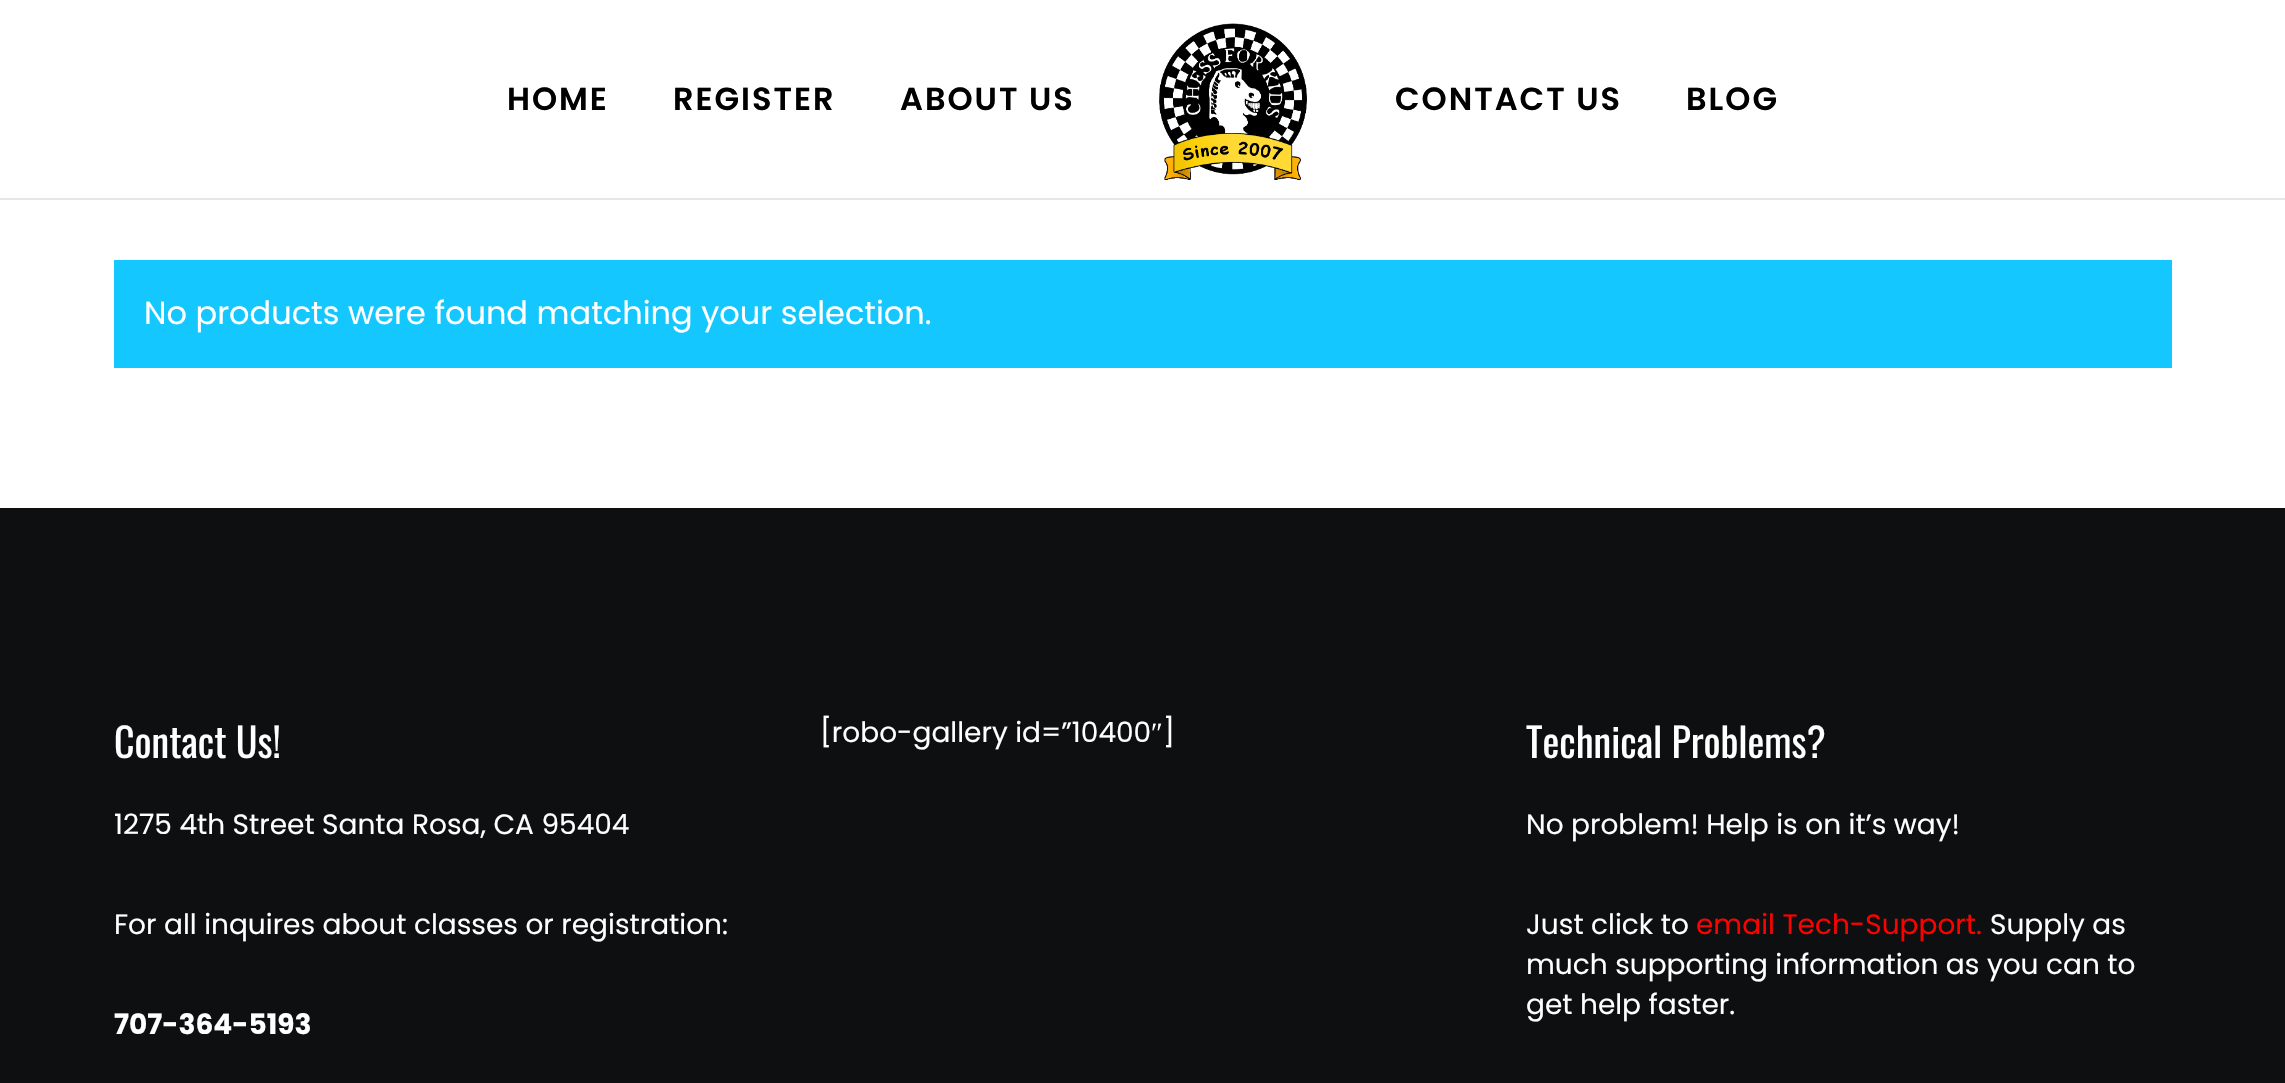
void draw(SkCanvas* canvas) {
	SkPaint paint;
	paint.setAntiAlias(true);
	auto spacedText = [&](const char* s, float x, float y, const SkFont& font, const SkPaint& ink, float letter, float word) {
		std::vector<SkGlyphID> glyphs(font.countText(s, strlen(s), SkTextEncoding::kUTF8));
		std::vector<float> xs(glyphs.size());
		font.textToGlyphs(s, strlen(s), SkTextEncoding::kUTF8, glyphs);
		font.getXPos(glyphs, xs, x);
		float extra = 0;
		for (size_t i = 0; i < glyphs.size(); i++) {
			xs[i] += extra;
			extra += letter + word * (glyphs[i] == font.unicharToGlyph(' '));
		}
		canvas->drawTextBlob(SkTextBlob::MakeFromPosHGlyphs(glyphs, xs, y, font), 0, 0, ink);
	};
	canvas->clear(0xff0d0f10);
	paint.setColor(0xffffffff);
	canvas->drawRect(SkRect::MakeXYWH(0, 0, 2285, 198), paint);
	paint.setColor(0xffe6e6e6);
	canvas->drawRect(SkRect::MakeXYWH(0, 198, 2285, 2), paint);
	SkFont f1(fontMgr->matchFamilyStyle("Poppins", SkFontStyle(600, SkFontStyle::kNormal_Width, SkFontStyle::kUpright_Slant)), 32);
	f1.setSubpixel(true);
	paint.setColor(0xff000000);
	spacedText("HOME", 507, 110, f1, paint, 2, 0);
	spacedText("REGISTER", 673, 110, f1, paint, 2, 0);
	spacedText("ABOUT US", 900, 110, f1, paint, 2, 0);
	canvas->drawImageRect(SkImages::DeferredFromEncodedData(SkData::MakeFromFileName("img1.png")), SkRect::MakeXYWH(1159, 23, 148, 157), SkSamplingOptions());
	spacedText("CONTACT US", 1395, 110, f1, paint, 2, 0);
	spacedText("BLOG", 1686, 110, f1, paint, 2, 0);
	paint.setColor(0xffffffff);
	canvas->drawRect(SkRect::MakeXYWH(0, 200, 2285, 308), paint);
	paint.setColor(0xff15c7ff);
	canvas->drawRect(SkRect::MakeXYWH(114, 260, 2058, 108), paint);
	SkFont f2(fontMgr->matchFamilyStyle("Poppins", SkFontStyle::Normal()), 32);
	f2.setSubpixel(true);
	paint.setColor(0xffffffff);
	canvas->drawString("No products were found matching your selection.", 144, 324, f2, paint);
	SkFont f3(fontMgr->matchFamilyStyle("Oswald", SkFontStyle::Normal()), 40);
	f3.setSubpixel(true);
	canvas->drawString("Contact Us!", 114, 758, f3, paint);
	SkFont f4(fontMgr->matchFamilyStyle("Poppins", SkFontStyle::Normal()), 28);
	f4.setSubpixel(true);
	canvas->drawString("1275 4th Street Santa Rosa, CA 95404", 114, 834, f4, paint);
	canvas->drawString("For all inquires about classes or registration:", 114, 934, f4, paint);
	SkFont f5(fontMgr->matchFamilyStyle("Poppins", SkFontStyle::Bold()), 28);
	f5.setSubpixel(true);
	canvas->drawString("707-364-5193", 114, 1034, f5, paint);
	canvas->drawString("[robo-gallery id=”10400", 820, 742, f4, paint);
	SkFont f6(fontMgr->matchFamilyStyle("Liberation Serif", SkFontStyle::Normal()), 28);
	f6.setSubpixel(true);
	canvas->drawString("″", 1151, 742, f6, paint);
	canvas->drawString("]", 1163, 742, f4, paint);
	canvas->drawString("Technical Problems?", 1526, 758, f3, paint);
	canvas->drawString("No problem! Help is on it’s way!", 1526, 834, f4, paint);
	canvas->drawString("Just click to", 1526, 934, f4, paint);
	paint.setColor(0xffff0000);
	canvas->drawString("email Tech-Support.", 1696, 934, f4, paint);
	paint.setColor(0xffffffff);
	canvas->drawString("Supply as", 1990, 934, f4, paint);
	canvas->drawString("much supporting information as you can to", 1526, 974, f4, paint);
	canvas->drawString("get help faster.", 1526, 1014, f4, paint);
}
